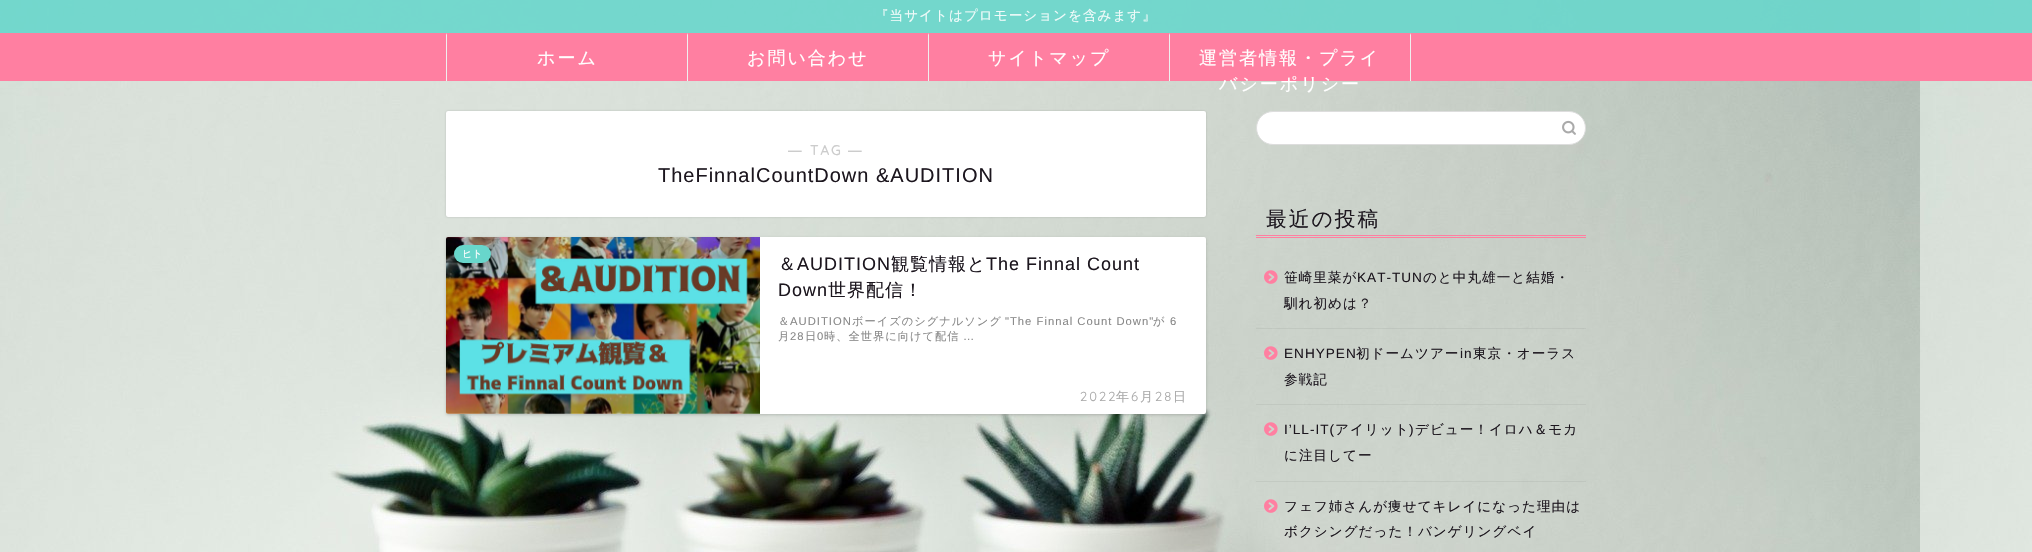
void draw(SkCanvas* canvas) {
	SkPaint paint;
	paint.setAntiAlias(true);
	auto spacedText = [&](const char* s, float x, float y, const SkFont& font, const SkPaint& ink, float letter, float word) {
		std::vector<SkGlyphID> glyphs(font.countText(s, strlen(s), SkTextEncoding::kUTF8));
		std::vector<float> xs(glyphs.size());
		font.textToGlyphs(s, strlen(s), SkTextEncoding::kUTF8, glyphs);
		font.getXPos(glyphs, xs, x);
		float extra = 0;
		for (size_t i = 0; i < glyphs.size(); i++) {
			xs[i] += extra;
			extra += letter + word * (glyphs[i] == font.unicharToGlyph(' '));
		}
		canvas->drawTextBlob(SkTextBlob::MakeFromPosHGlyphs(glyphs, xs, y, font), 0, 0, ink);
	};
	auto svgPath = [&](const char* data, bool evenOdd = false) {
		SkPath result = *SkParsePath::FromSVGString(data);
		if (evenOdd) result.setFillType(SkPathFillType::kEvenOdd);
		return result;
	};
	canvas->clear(0xffffffff);
	canvas->drawImageRect(SkImages::DeferredFromEncodedData(SkData::MakeFromFileName("img1.png")), SkRect::MakeXYWH(0, 0, 2032, 552), SkSamplingOptions());
	paint.setColor(0xe668d6cb);
	canvas->drawRect(SkRect::MakeXYWH(0, 0, 2032, 33), paint);
	SkFont f1(fontMgr->matchFamilyStyle("WenQuanYi Zen Hei", SkFontStyle(500, SkFontStyle::kNormal_Width, SkFontStyle::kUpright_Slant)), 13.6);
	f1.setSubpixel(true);
	paint.setColor(0xfff1fbfa);
	spacedText("『当サイトはプロモーションを含みます』", 875, 20, f1, paint, 1, 0);
	paint.setColor(0xffff7fa1);
	canvas->drawRect(SkRect::MakeXYWH(0, 33, 2032, 48), paint);
	paint.setColor(0xffefefef);
	canvas->drawPath(svgPath("M446 81V33L447 35V81Z"), paint);
	SkFont f2(fontMgr->matchFamilyStyle("WenQuanYi Zen Hei", SkFontStyle(500, SkFontStyle::kNormal_Width, SkFontStyle::kUpright_Slant)), 18);
	f2.setSubpixel(true);
	paint.setColor(0xffffffff);
	spacedText("ホーム", 537, 64, f2, paint, 2, 0);
	paint.setColor(0xffefefef);
	canvas->drawPath(svgPath("M687 81V33L688 35V81Z"), paint);
	paint.setColor(0xffffffff);
	spacedText("お問い合わせ", 747, 64, f2, paint, 2, 0);
	paint.setColor(0xffefefef);
	canvas->drawPath(svgPath("M928 81V33L929 35V81Z"), paint);
	paint.setColor(0xffffffff);
	spacedText("サイトマップ", 988, 64, f2, paint, 2, 0);
	paint.setColor(0xffefefef);
	canvas->drawPath(svgPath("M1411 33V81H1410V35Z"), paint);
	canvas->drawPath(svgPath("M1169 81V33L1170 35V81Z"), paint);
	paint.setColor(0xffffffff);
	spacedText("運営者情報・プライ", 1199, 64, f2, paint, 2, 0);
	spacedText("バシーポリシー", 1219, 90, f2, paint, 2, 0);
	paint.setColor(0x2e000000);
	paint.setMaskFilter(SkMaskFilter::MakeBlur(kNormal_SkBlurStyle, 1));
	canvas->drawRoundRect(SkRect::MakeXYWH(446, 111, 760, 106), 2, 2, paint);
	paint.setMaskFilter(nullptr);
	paint.setColor(0xffffffff);
	canvas->drawRoundRect(SkRect::MakeXYWH(446, 111, 760, 106), 2, 2, paint);
	SkFont f3(fontMgr->matchFamilyStyle("Liberation Sans", SkFontStyle::Bold()), 13.6);
	f3.setSubpixel(true);
	paint.setColor(0xffcccccc);
	spacedText("―", 788, 155, f3, paint, 2, 0);
	SkFont f4(fontMgr->matchFamilyStyle("Quicksand", SkFontStyle::Bold()), 13.6);
	f4.setSubpixel(true);
	spacedText("TAG", 810, 155, f4, paint, 2, 0);
	spacedText("―", 848, 155, f3, paint, 2, 0);
	SkFont f5(fontMgr->matchFamilyStyle("Liberation Sans", SkFontStyle::Normal()), 20);
	f5.setSubpixel(true);
	paint.setColor(0xff1c161e);
	spacedText("TheFinnalCountDown &AUDITION", 658, 182, f5, paint, 1, 0);
	paint.setColor(0x2e000000);
	paint.setMaskFilter(SkMaskFilter::MakeBlur(kNormal_SkBlurStyle, 1.5));
	canvas->drawRoundRect(SkRect::MakeXYWH(446, 238, 760, 177), 2, 2, paint);
	paint.setMaskFilter(nullptr);
	paint.setColor(0xffffffff);
	canvas->drawRoundRect(SkRect::MakeXYWH(446, 237, 760, 177), 2, 2, paint);
	canvas->drawImageRect(SkImages::DeferredFromEncodedData(SkData::MakeFromFileName("img2.png")), SkRect::MakeXYWH(446, 237, 314, 177), SkSamplingOptions());
	paint.setColor(0xff68d6cb);
	canvas->drawRoundRect(SkRect::MakeXYWH(454, 245, 37, 18), 9, 9, paint);
	SkFont f6(fontMgr->matchFamilyStyle("WenQuanYi Zen Hei", SkFontStyle(500, SkFontStyle::kNormal_Width, SkFontStyle::kUpright_Slant)), 10);
	f6.setSubpixel(true);
	paint.setColor(0xffffffff);
	canvas->drawString("ヒト", 462, 257, f6, paint);
	paint.setColor(0xff1c161e);
	spacedText("＆", 778, 270, f2, paint, 1, 0);
	SkFont f7(fontMgr->matchFamilyStyle("Liberation Sans", SkFontStyle::Normal()), 18);
	f7.setSubpixel(true);
	spacedText("AUDITION", 797, 270, f7, paint, 1, 0);
	spacedText("観覧情報と", 891, 270, f2, paint, 1, 0);
	spacedText("The Finnal Count", 986, 270, f7, paint, 1, 0);
	spacedText("Down", 778, 296, f7, paint, 1, 0);
	spacedText("世界配信！", 828, 296, f2, paint, 1, 0);
	SkFont f8(fontMgr->matchFamilyStyle("WenQuanYi Zen Hei", SkFontStyle(500, SkFontStyle::kNormal_Width, SkFontStyle::kUpright_Slant)), 11.25);
	f8.setSubpixel(true);
	paint.setColor(0xff888888);
	spacedText("＆", 778, 325, f8, paint, 1, 0);
	SkFont f9(fontMgr->matchFamilyStyle("Liberation Sans", SkFontStyle::Normal()), 11.25);
	f9.setSubpixel(true);
	spacedText("AUDITION", 790, 325, f9, paint, 1, 0);
	spacedText("ボーイズのシグナルソング", 852, 325, f8, paint, 1, 0);
	spacedText("\"The Finnal Count Down\"", 1005, 325, f9, paint, 1, 0);
	spacedText("が", 1153, 325, f8, paint, 1, 0);
	spacedText("6", 1170, 325, f9, paint, 1, 0);
	spacedText("月", 778, 340, f8, paint, 1, 0);
	spacedText("28", 790, 340, f9, paint, 1, 0);
	spacedText("日", 805, 340, f8, paint, 1, 0);
	spacedText("0", 817, 340, f9, paint, 1, 0);
	spacedText("時、全世界に向けて配信", 824, 340, f8, paint, 1, 0);
	spacedText("…", 963, 340, f9, paint, 1, 0);
	SkFont f10(fontMgr->matchFamilyStyle("Quicksand", SkFontStyle(300, SkFontStyle::kNormal_Width, SkFontStyle::kUpright_Slant)), 13);
	f10.setSubpixel(true);
	paint.setColor(0xffaaaaaa);
	spacedText("2022", 1080, 401, f10, paint, 2, 0);
	SkFont f11(fontMgr->matchFamilyStyle("WenQuanYi Zen Hei", SkFontStyle(500, SkFontStyle::kNormal_Width, SkFontStyle::kUpright_Slant)), 13);
	f11.setSubpixel(true);
	spacedText("年", 1116, 401, f11, paint, 2, 0);
	spacedText("6", 1131, 401, f10, paint, 2, 0);
	spacedText("月", 1140, 401, f11, paint, 2, 0);
	spacedText("28", 1155, 401, f10, paint, 2, 0);
	spacedText("日", 1173, 401, f11, paint, 2, 0);
	paint.setColor(0xffffffff);
	canvas->drawRoundRect(SkRect::MakeXYWH(1256.5, 111.5, 329, 33), 16.5, 16.5, paint);
	paint.setStroke(true);
	paint.setStrokeWidth(1);
	paint.setColor(0xffdddddd);
	canvas->drawRoundRect(SkRect::MakeXYWH(1256.5, 111.5, 329, 33), 16.5, 16.5, paint);
	canvas->drawImageRect(SkImages::DeferredFromEncodedData(SkData::MakeFromFileName("img3.png")), SkRect::MakeXYWH(1562, 120, 14, 15), SkSamplingOptions());
	paint.setStroke(false);
	paint.setColor(0xffff7fa1);
	canvas->drawRect(SkRect::MakeXYWH(1256, 235, 330, 1), paint);
	canvas->drawRect(SkRect::MakeXYWH(1256, 237, 330, 1), paint);
	SkFont f12(fontMgr->matchFamilyStyle("WenQuanYi Zen Hei", SkFontStyle(500, SkFontStyle::kNormal_Width, SkFontStyle::kUpright_Slant)), 20.75);
	f12.setSubpixel(true);
	paint.setColor(0xff1c161e);
	spacedText("最近の投稿", 1266, 226, f12, paint, 2, 0);
	paint.setColor(0x0d000000);
	canvas->drawRect(SkRect::MakeXYWH(1256, 328, 330, 1), paint);
	canvas->drawImageRect(SkImages::DeferredFromEncodedData(SkData::MakeFromFileName("img4.png")), SkRect::MakeXYWH(1264, 270, 14, 14), SkSamplingOptions());
	paint.setColor(0xff1c161e);
	spacedText("笹崎里菜が", 1284, 282, f1, paint, 1, 0);
	SkFont f13(fontMgr->matchFamilyStyle("Liberation Sans", SkFontStyle::Normal()), 13.6);
	f13.setSubpixel(true);
	spacedText("KAT-TUN", 1357, 282, f13, paint, 1, 0);
	spacedText("のと中丸雄一と結婚・", 1423, 282, f1, paint, 1, 0);
	spacedText("馴れ初めは？", 1284, 308, f1, paint, 1, 0);
	paint.setColor(0x0d000000);
	canvas->drawRect(SkRect::MakeXYWH(1256, 404, 330, 1), paint);
	canvas->drawImageRect(SkImages::DeferredFromEncodedData(SkData::MakeFromFileName("img5.png")), SkRect::MakeXYWH(1264, 346, 14, 14), SkSamplingOptions());
	paint.setColor(0xff1c161e);
	spacedText("ENHYPEN", 1284, 358, f13, paint, 1, 0);
	spacedText("初ドームツアー", 1356, 358, f1, paint, 1, 0);
	spacedText("in", 1460, 358, f13, paint, 1, 0);
	spacedText("東京・オーラス", 1473, 358, f1, paint, 1, 0);
	spacedText("参戦記", 1284, 384, f1, paint, 1, 0);
	paint.setColor(0x0d000000);
	canvas->drawRect(SkRect::MakeXYWH(1256, 481, 330, 1), paint);
	canvas->drawImageRect(SkImages::DeferredFromEncodedData(SkData::MakeFromFileName("img6.png")), SkRect::MakeXYWH(1264, 422, 14, 14), SkSamplingOptions());
	paint.setColor(0xff1c161e);
	spacedText("I’LL-IT(", 1284, 434, f13, paint, 1, 0);
	spacedText("アイリット", 1335, 434, f1, paint, 1, 0);
	spacedText(")", 1409, 434, f13, paint, 1, 0);
	spacedText("デビュー！イロハ＆モカ", 1415, 434, f1, paint, 1, 0);
	spacedText("に注目してー", 1284, 460, f1, paint, 1, 0);
	canvas->drawImageRect(SkImages::DeferredFromEncodedData(SkData::MakeFromFileName("img7.png")), SkRect::MakeXYWH(1264, 499, 14, 14), SkSamplingOptions());
	spacedText("フェフ姉さんが痩せてキレイになった理由は", 1284, 511, f1, paint, 1, 0);
	spacedText("ボクシングだった！バンゲリングベイ", 1284, 536, f1, paint, 1, 0);
}
